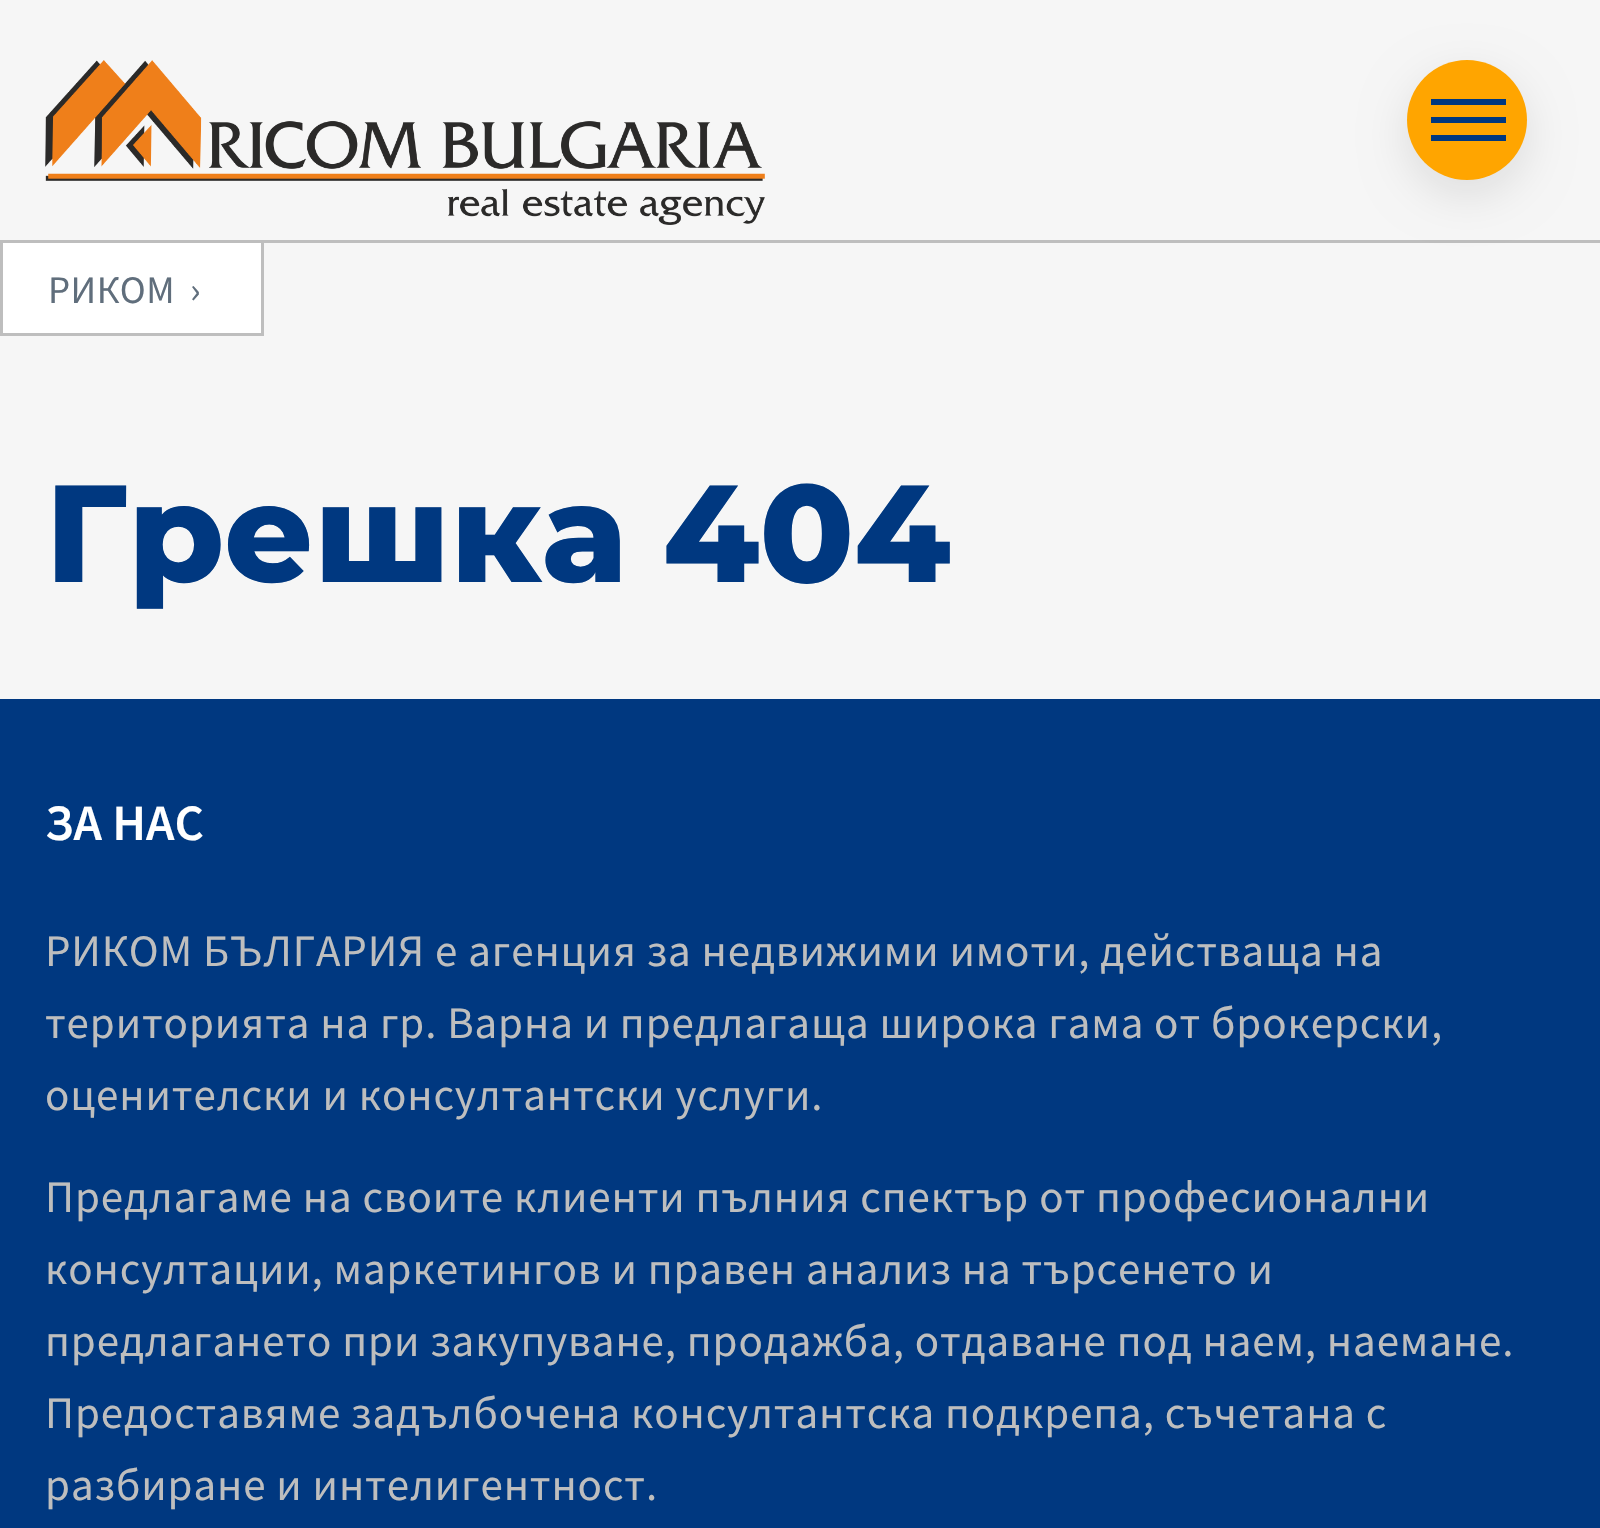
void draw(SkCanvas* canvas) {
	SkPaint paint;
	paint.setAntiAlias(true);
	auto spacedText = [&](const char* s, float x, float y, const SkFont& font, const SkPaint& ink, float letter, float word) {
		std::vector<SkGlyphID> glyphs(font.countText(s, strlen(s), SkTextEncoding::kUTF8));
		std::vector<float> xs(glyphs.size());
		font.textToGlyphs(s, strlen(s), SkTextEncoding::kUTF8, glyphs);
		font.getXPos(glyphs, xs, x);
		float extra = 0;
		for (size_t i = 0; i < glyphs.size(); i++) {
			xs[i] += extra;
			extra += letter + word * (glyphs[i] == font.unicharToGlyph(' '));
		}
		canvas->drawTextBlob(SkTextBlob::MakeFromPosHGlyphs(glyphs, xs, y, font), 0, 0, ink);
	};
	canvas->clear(0xfff6f6f6);
	canvas->drawImageRect(SkImages::DeferredFromEncodedData(SkData::MakeFromFileName("img1.png")), SkRect::MakeXYWH(45, 60, 720, 165), SkSamplingOptions());
	paint.setColor(0xffbebebe);
	canvas->drawRect(SkRect::MakeXYWH(0, 240, 1600, 3), paint);
	paint.setColor(0x1a000000);
	paint.setMaskFilter(SkMaskFilter::MakeBlur(kNormal_SkBlurStyle, 22.5));
	canvas->drawRoundRect(SkRect::MakeXYWH(1407, 75, 120, 120), 60, 60, paint);
	paint.setMaskFilter(nullptr);
	paint.setColor(0xffffa500);
	canvas->drawCircle(1467, 120, 60, paint);
	paint.setColor(0xff003880);
	canvas->drawRect(SkRect::MakeXYWH(1431, 117, 75, 6), paint);
	canvas->drawRect(SkRect::MakeXYWH(1431, 99, 75, 6), paint);
	canvas->drawRect(SkRect::MakeXYWH(1431, 135, 75, 6), paint);
	paint.setColor(0xffffffff);
	canvas->drawRect(SkRect::MakeXYWH(3, 243, 258, 90), paint);
	paint.setColor(0xffbebebe);
	canvas->drawRect(SkRect::MakeXYWH(261, 243, 3, 93), paint);
	canvas->drawRect(SkRect::MakeXYWH(0, 333, 264, 3), paint);
	canvas->drawRect(SkRect::MakeXYWH(0, 243, 3, 93), paint);
	SkFont f1(fontMgr->matchFamilyStyle("Source Sans Pro", SkFontStyle::Normal()), 39);
	f1.setSubpixel(true);
	paint.setColor(0xff606e7c);
	spacedText("РИКОМ", 48, 303, f1, paint, 0.5, 0);
	spacedText("›", 190, 303, f1, paint, 0.5, 0);
	SkFont f2(fontMgr->matchFamilyStyle("Montserrat", SkFontStyle(800, SkFontStyle::kNormal_Width, SkFontStyle::kUpright_Slant)), 138);
	f2.setSubpixel(true);
	paint.setColor(0xff003880);
	spacedText("Грешка 404", 45, 582, f2, paint, 0, -4);
	canvas->drawRect(SkRect::MakeXYWH(0, 699, 1600, 829), paint);
	SkFont f3(fontMgr->matchFamilyStyle("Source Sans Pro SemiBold", SkFontStyle(600, SkFontStyle::kNormal_Width, SkFontStyle::kUpright_Slant)), 51);
	f3.setSubpixel(true);
	paint.setColor(0xffffffff);
	canvas->drawString("ЗА НАС", 45, 840, f3, paint);
	SkFont f4(fontMgr->matchFamilyStyle("Source Sans Pro", SkFontStyle::Normal()), 45);
	f4.setSubpixel(true);
	paint.setColor(0xffbebebe);
	spacedText("РИКОМ БЪЛГАРИЯ е агенция за недвижими имоти, действаща на", 45, 966, f4, paint, 0.9, 0);
	spacedText("територията на гр. Варна и предлагаща широка гама от брокерски,", 45, 1038, f4, paint, 0.9, 0);
	spacedText("оценителски и консултантски услуги.", 45, 1110, f4, paint, 0.9, 0);
	spacedText("Предлагаме на своите клиенти пълния спектър от професионални", 45, 1212, f4, paint, 0.9, 0);
	spacedText("консултации, маркетингов и правен анализ на търсенето и", 45, 1284, f4, paint, 0.9, 0);
	spacedText("предлагането при закупуване, продажба, отдаване под наем, наемане.", 45, 1356, f4, paint, 0.9, 0);
	spacedText("Предоставяме задълбочена консултантска подкрепа, съчетана с", 45, 1428, f4, paint, 0.9, 0);
	spacedText("разбиране и интелигентност.", 45, 1500, f4, paint, 0.9, 0);
}
